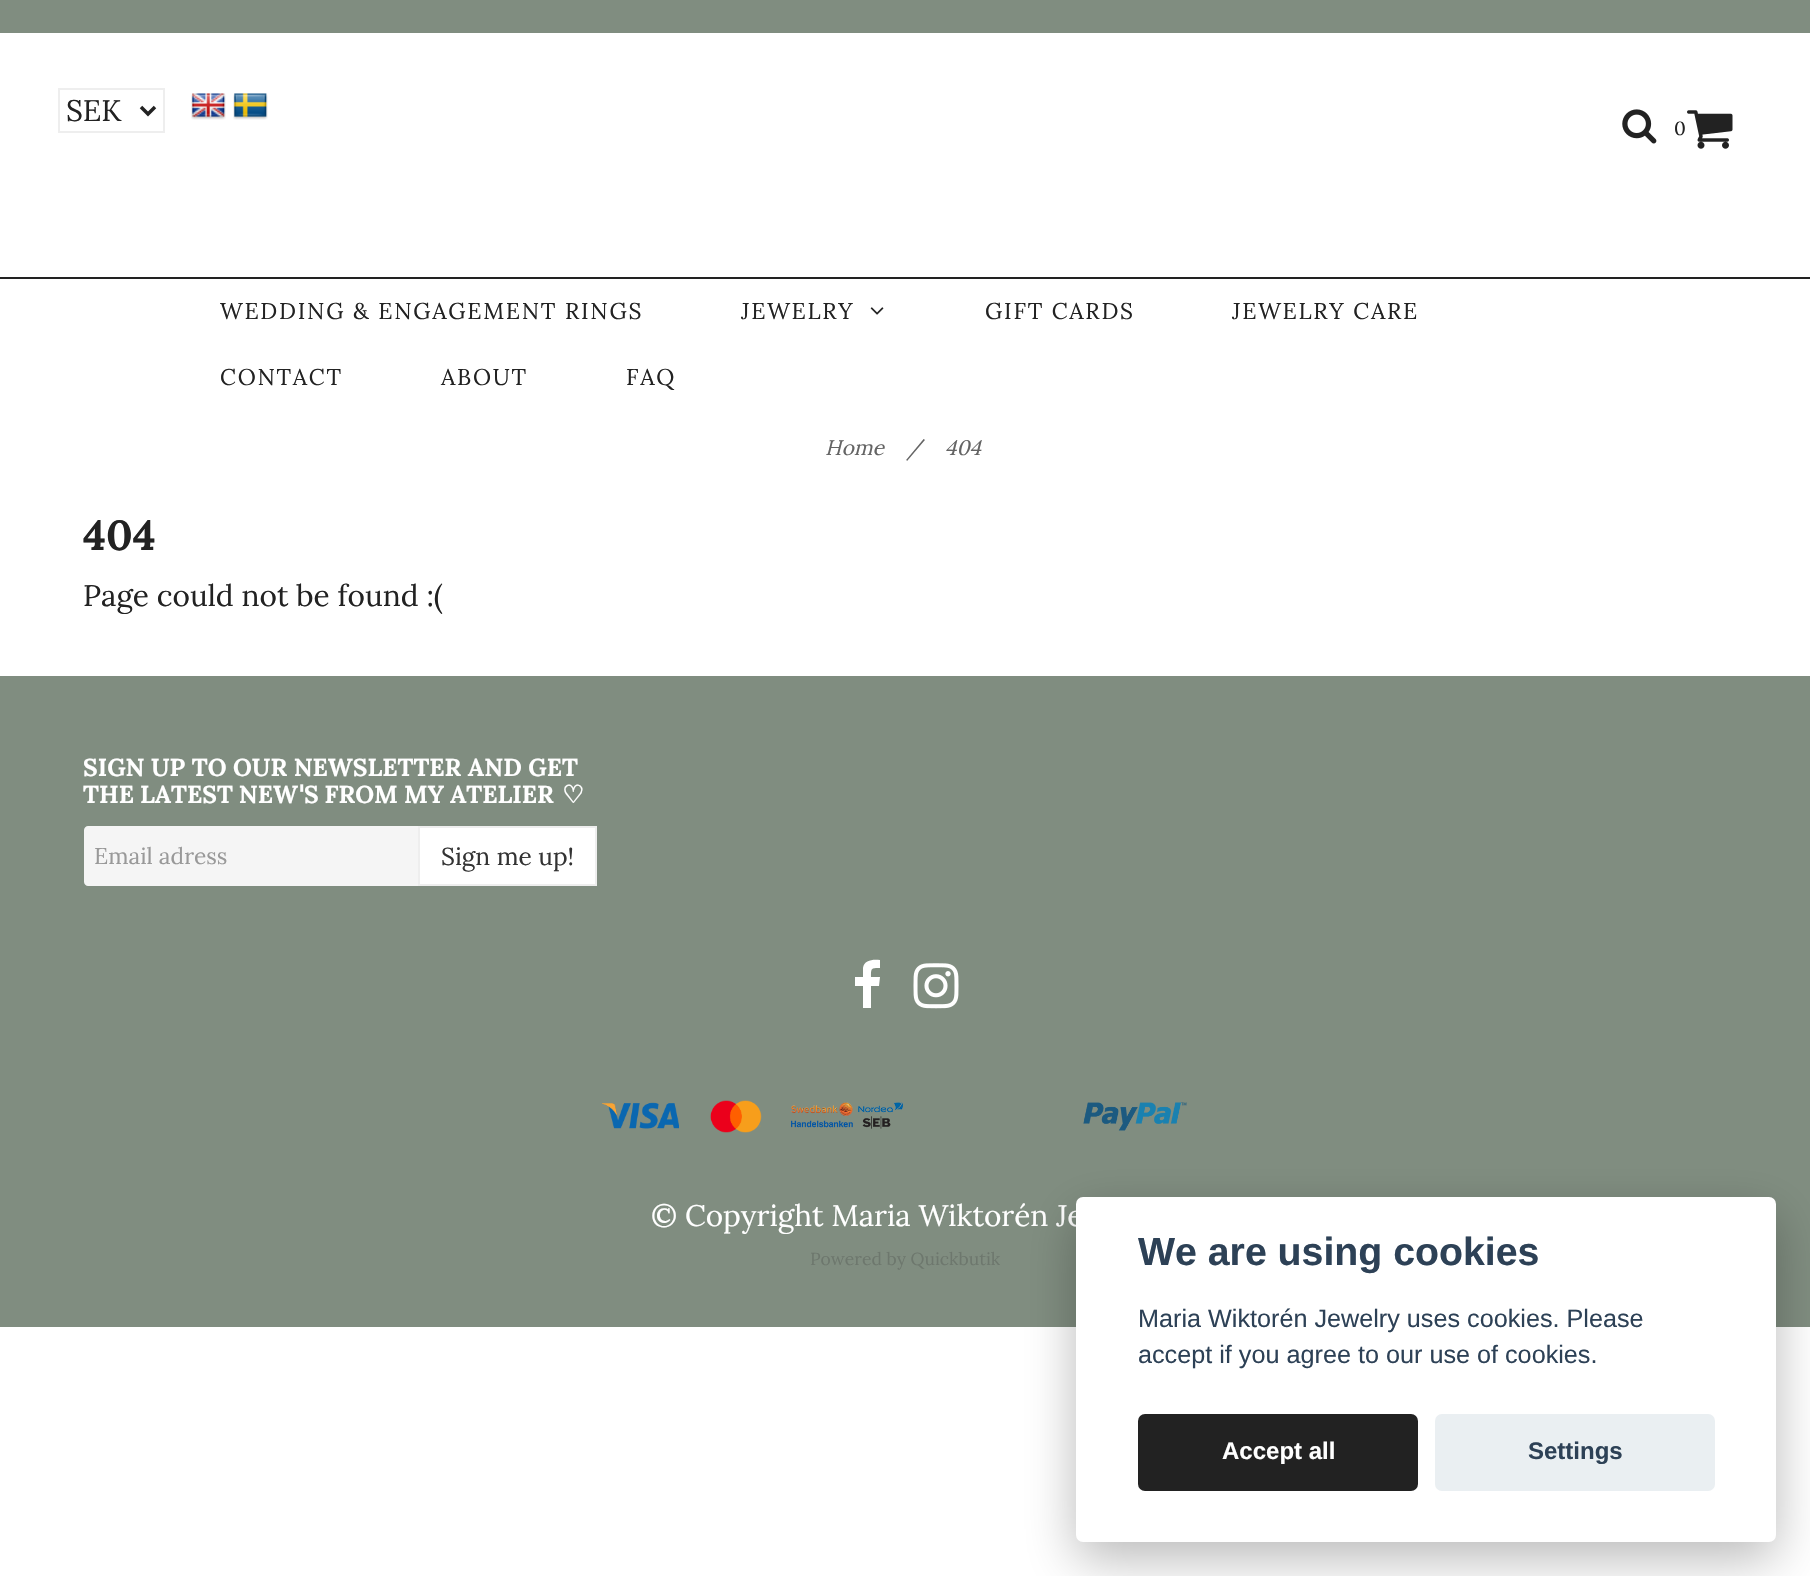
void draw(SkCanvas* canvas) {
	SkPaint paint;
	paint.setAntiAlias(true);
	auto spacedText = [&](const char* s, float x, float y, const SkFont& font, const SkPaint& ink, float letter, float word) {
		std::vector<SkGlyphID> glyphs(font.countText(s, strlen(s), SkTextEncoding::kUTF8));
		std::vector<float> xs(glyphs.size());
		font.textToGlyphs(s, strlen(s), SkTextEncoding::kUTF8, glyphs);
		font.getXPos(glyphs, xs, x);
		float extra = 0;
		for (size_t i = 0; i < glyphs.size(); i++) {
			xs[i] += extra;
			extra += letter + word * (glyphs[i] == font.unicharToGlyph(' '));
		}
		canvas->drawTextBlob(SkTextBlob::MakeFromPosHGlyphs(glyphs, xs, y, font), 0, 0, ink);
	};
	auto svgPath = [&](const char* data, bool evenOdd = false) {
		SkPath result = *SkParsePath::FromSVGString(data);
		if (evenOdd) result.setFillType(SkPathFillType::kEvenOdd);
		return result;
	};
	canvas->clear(0xffffffff);
	paint.setColor(0xff808d80);
	canvas->drawRect(SkRect::MakeXYWH(0, 0, 1810, 33), paint);
	paint.setStroke(true);
	paint.setStrokeWidth(2);
	paint.setColor(0xffeeeeee);
	canvas->drawRect(SkRect::MakeXYWH(59, 89, 105, 43), paint);
	paint.setStrokeWidth(3.5);
	paint.setColor(0xff222222);
	canvas->drawPath(svgPath("M141 107L148 114L155 107"), paint);
	SkFont f1(fontMgr->matchFamilyStyle("Lora", SkFontStyle::Normal()), 29.75);
	f1.setSubpixel(true);
	paint.setStroke(false);
	canvas->drawString("SEK", 66, 121, f1, paint);
	canvas->drawImageRect(SkImages::DeferredFromEncodedData(SkData::MakeFromFileName("img1.png")), SkRect::MakeXYWH(191, 93, 35, 27), SkSamplingOptions());
	canvas->drawImageRect(SkImages::DeferredFromEncodedData(SkData::MakeFromFileName("img2.png")), SkRect::MakeXYWH(233, 93, 35, 27), SkSamplingOptions());
	canvas->drawImageRect(SkImages::DeferredFromEncodedData(SkData::MakeFromFileName("img3.png")), SkRect::MakeXYWH(1622, 109, 35, 35), SkSamplingOptions());
	SkFont f2(fontMgr->matchFamilyStyle("Lora", SkFontStyle::Normal()), 19);
	f2.setSubpixel(true);
	canvas->drawString("0", 1674, 135, f2, paint);
	canvas->drawImageRect(SkImages::DeferredFromEncodedData(SkData::MakeFromFileName("img4.png")), SkRect::MakeXYWH(1687, 110, 46, 39), SkSamplingOptions());
	canvas->drawRect(SkRect::MakeXYWH(0, 277, 1810, 2), paint);
	SkFont f3(fontMgr->matchFamilyStyle("Lora", SkFontStyle::Normal()), 22.75);
	f3.setSubpixel(true);
	spacedText("WEDDING & ENGAGEMENT RINGS", 220, 319, f3, paint, 1.75, 0);
	spacedText("JEWELRY", 741, 319, f3, paint, 1.75, 0);
	canvas->drawImageRect(SkImages::DeferredFromEncodedData(SkData::MakeFromFileName("img5.png")), SkRect::MakeXYWH(870, 307, 14, 8), SkSamplingOptions());
	spacedText("GIFT CARDS", 985, 319, f3, paint, 1.75, 0);
	spacedText("JEWELRY CARE", 1232, 319, f3, paint, 1.75, 0);
	spacedText("CONTACT", 220, 385, f3, paint, 1.75, 0);
	spacedText("ABOUT", 441, 385, f3, paint, 1.75, 0);
	spacedText("FAQ", 626, 385, f3, paint, 1.75, 0);
	SkFont f4(fontMgr->matchFamilyStyle("Lora", SkFontStyle::Italic()), 21);
	f4.setSubpixel(true);
	paint.setColor(0xff646464);
	canvas->drawString("Home", 825, 455, f4, paint);
	canvas->drawString("/", 907, 455, f4, paint);
	canvas->drawString("404", 945, 455, f4, paint);
	SkFont f5(fontMgr->matchFamilyStyle("Lora", SkFontStyle::Bold()), 42);
	f5.setSubpixel(true);
	paint.setColor(0xff222222);
	canvas->drawString("404", 83, 550, f5, paint);
	canvas->drawString("Page could not be found :(", 83, 606, f1, paint);
	paint.setColor(0xff808d80);
	canvas->drawRect(SkRect::MakeXYWH(0, 676, 1810, 651), paint);
	SkFont f6(fontMgr->matchFamilyStyle("Lora", SkFontStyle::Bold()), 24.5);
	f6.setSubpixel(true);
	paint.setColor(0xffffffff);
	canvas->drawString("SIGN UP TO OUR NEWSLETTER AND GET", 83, 776, f6, paint);
	spacedText("THE LATEST NEW S FROM MY ATELIER", 83, 803, f6, paint, 0, -0.5);
	SkFont f7(fontMgr->matchFamilyStyle("DejaVu Sans", SkFontStyle::Bold()), 24.5);
	f7.setSubpixel(true);
	canvas->drawString("'", 298, 803, f7, paint);
	canvas->drawString("♡", 562, 803, f7, paint);
	paint.setColor(0xfff5f5f5);
	canvas->drawPath(svgPath("M88 826H420V886H88C86 886 84 884 84 882V830C84 828 86 826 88 826Z"), paint);
	paint.setColor(0xff999999);
	canvas->drawString("Email adress", 94, 864, f3, paint);
	paint.setColor(0xffffffff);
	canvas->drawRect(SkRect::MakeXYWH(419, 827, 177, 58), paint);
	paint.setStroke(true);
	paint.setStrokeWidth(2);
	paint.setColor(0xffeeeeee);
	canvas->drawRect(SkRect::MakeXYWH(419, 827, 177, 58), paint);
	SkFont f8(fontMgr->matchFamilyStyle("Lora", SkFontStyle::Normal()), 24.5);
	f8.setSubpixel(true);
	paint.setStroke(false);
	paint.setColor(0xff333333);
	canvas->drawString("Sign me up!", 441, 865, f8, paint);
	paint.setColor(0xffffffff);
	canvas->drawPath(svgPath("M880 960V968C871 968 871 968 871 977H880L879 986H871V1008H863V986H855V977H863V968C864 960 873 959 880 960Z"), paint);
	canvas->drawImageRect(SkImages::DeferredFromEncodedData(SkData::MakeFromFileName("img6.png")), SkRect::MakeXYWH(913, 963, 46, 46), SkSamplingOptions());
	canvas->drawImageRect(SkImages::DeferredFromEncodedData(SkData::MakeFromFileName("img7.png")), SkRect::MakeXYWH(602, 1102, 77, 27), SkSamplingOptions());
	canvas->drawImageRect(SkImages::DeferredFromEncodedData(SkData::MakeFromFileName("img8.png")), SkRect::MakeXYWH(710, 1100, 52, 33), SkSamplingOptions());
	canvas->drawImageRect(SkImages::DeferredFromEncodedData(SkData::MakeFromFileName("img9.png")), SkRect::MakeXYWH(791, 1102, 112, 27), SkSamplingOptions());
	canvas->drawImageRect(SkImages::DeferredFromEncodedData(SkData::MakeFromFileName("img10.png")), SkRect::MakeXYWH(1083, 1102, 104, 29), SkSamplingOptions());
	canvas->drawString("© Copyright Maria Wiktorén Je", 651, 1226, f1, paint);
	SkFont f9(fontMgr->matchFamilyStyle("Lora", SkFontStyle::Normal()), 17.5);
	f9.setSubpixel(true);
	paint.setColor(0xff6d776d);
	canvas->drawString("Powered by Quickbutik", 810, 1265, f9, paint);
	paint.setColor(0x47020203);
	paint.setMaskFilter(SkMaskFilter::MakeBlur(kNormal_SkBlurStyle, 26));
	canvas->drawRoundRect(SkRect::MakeXYWH(1076, 1215, 700, 344), 7, 7, paint);
	paint.setMaskFilter(nullptr);
	paint.setColor(0xffffffff);
	canvas->drawRoundRect(SkRect::MakeXYWH(1076, 1197, 700, 345), 7, 7, paint);
	SkFont f10(fontMgr->matchFamilyStyle("Liberation Sans", SkFontStyle::Bold()), 39.25);
	f10.setSubpixel(true);
	paint.setColor(0xff2d4156);
	canvas->drawString("We are using cookies", 1138, 1265, f10, paint);
	SkFont f11(fontMgr->matchFamilyStyle("Liberation Sans", SkFontStyle::Normal()), 25.2);
	f11.setSubpixel(true);
	canvas->drawString("Maria Wiktorén Jewelry uses cookies. Please", 1138, 1327, f11, paint);
	canvas->drawString("accept if you agree to our use of cookies.", 1138, 1363, f11, paint);
	paint.setColor(0xff222222);
	canvas->drawRoundRect(SkRect::MakeXYWH(1138, 1414, 280, 77), 7, 7, paint);
	SkFont f12(fontMgr->matchFamilyStyle("Liberation Sans", SkFontStyle::Bold()), 24);
	f12.setSubpixel(true);
	paint.setColor(0xffffffff);
	canvas->drawString("Accept all", 1222, 1459, f12, paint);
	paint.setColor(0xffeaeff2);
	canvas->drawRoundRect(SkRect::MakeXYWH(1435, 1414, 280, 77), 7, 7, paint);
	paint.setColor(0xff2d4156);
	canvas->drawString("Settings", 1528, 1459, f12, paint);
}
